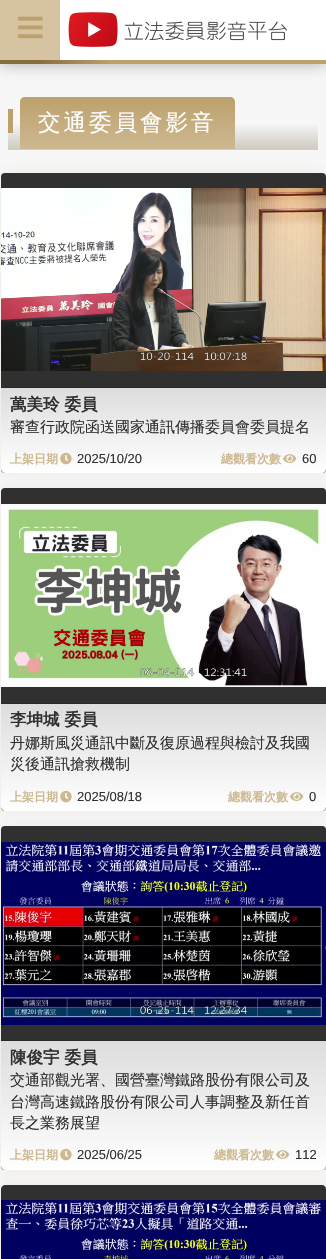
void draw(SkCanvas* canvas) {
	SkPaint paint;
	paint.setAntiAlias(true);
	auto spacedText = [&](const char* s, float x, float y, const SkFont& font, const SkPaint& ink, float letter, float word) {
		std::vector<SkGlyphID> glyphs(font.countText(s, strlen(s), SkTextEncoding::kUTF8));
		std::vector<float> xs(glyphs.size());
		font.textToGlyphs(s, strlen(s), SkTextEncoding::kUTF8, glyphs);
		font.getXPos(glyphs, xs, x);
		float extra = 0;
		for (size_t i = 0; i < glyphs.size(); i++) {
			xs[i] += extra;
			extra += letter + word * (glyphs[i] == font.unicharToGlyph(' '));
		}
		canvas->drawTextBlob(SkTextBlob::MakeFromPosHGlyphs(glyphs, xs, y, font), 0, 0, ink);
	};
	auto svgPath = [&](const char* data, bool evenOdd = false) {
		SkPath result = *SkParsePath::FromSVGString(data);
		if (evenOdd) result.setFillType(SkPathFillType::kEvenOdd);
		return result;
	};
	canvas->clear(0xfff7f7f7);
	paint.setColor(0x4d000000);
	paint.setMaskFilter(SkMaskFilter::MakeBlur(kNormal_SkBlurStyle, 7.5));
	canvas->drawRect(SkRect::MakeXYWH(0, 0, 326, 64), paint);
	paint.setMaskFilter(nullptr);
	{
		const SkColor colors[] = {0xff876e3d, 0xffbda16d};
		const float stops[] = {0.12, 0.34};
		const SkPoint ends[] = {{0, 32}, {326, 32}};
		paint.setShader(SkGradientShader::MakeLinear(ends, colors, stops, 2, SkTileMode::kClamp));
		paint.setAlpha(255);
	}
	canvas->drawRect(SkRect::MakeXYWH(0, 60, 326, 4), paint);
	paint.setShader(nullptr);
	paint.setColor(0xffffffff);
	canvas->drawRect(SkRect::MakeXYWH(60, 0, 266, 60), paint);
	canvas->drawImageRect(SkImages::DeferredFromEncodedData(SkData::MakeFromFileName("img1.png")), SkRect::MakeXYWH(68, 12, 219, 35), SkSamplingOptions());
	paint.setColor(0xffd5c3a2);
	canvas->drawRect(SkRect::MakeXYWH(0, 0, 60, 60), paint);
	canvas->drawImageRect(SkImages::DeferredFromEncodedData(SkData::MakeFromFileName("img2.png")), SkRect::MakeXYWH(18, 16, 25, 23), SkSamplingOptions());
	{
		const SkColor colors[] = {0xfff7f7f7, 0xffd0cbc0};
		const float stops[] = {0.5, 1};
		const SkPoint ends[] = {{163, 97}, {163, 149}};
		paint.setShader(SkGradientShader::MakeLinear(ends, colors, stops, 2, SkTileMode::kClamp));
		paint.setAlpha(255);
	}
	canvas->drawRect(SkRect::MakeXYWH(8, 124, 310, 25), paint);
	paint.setShader(nullptr);
	paint.setColor(0xffdaccb2);
	canvas->drawRect(SkRect::MakeXYWH(8, 149, 310, 1), paint);
	paint.setColor(0xffbda16d);
	canvas->drawRect(SkRect::MakeXYWH(8, 109, 5, 24), paint);
	{
		const SkColor colors[] = {0xffbda16d, 0xffcdb890};
		const float stops[] = {0, 1};
		const SkPoint ends[] = {{128, 97}, {128, 149}};
		paint.setShader(SkGradientShader::MakeLinear(ends, colors, stops, 2, SkTileMode::kClamp));
		paint.setAlpha(255);
	}
	canvas->drawPath(svgPath("M25 97H230C233 97 235 99 235 102V149H20V102C20 99 22 97 25 97Z"), paint);
	SkFont f1(fontMgr->matchFamilyStyle("WenQuanYi Zen Hei", SkFontStyle(500, SkFontStyle::kNormal_Width, SkFontStyle::kUpright_Slant)), 22.5);
	f1.setSubpixel(true);
	paint.setShader(nullptr);
	paint.setColor(0xffffffff);
	spacedText("交通委員會影音", 38, 130, f1, paint, 3, 0);
	paint.setColor(0x1a876e3d);
	paint.setMaskFilter(SkMaskFilter::MakeBlur(kNormal_SkBlurStyle, 7));
	canvas->drawRoundRect(SkRect::MakeXYWH(1, 173, 325, 300), 4, 4, paint);
	paint.setMaskFilter(nullptr);
	paint.setColor(0xff303030);
	canvas->drawRoundRect(SkRect::MakeXYWH(1, 173, 325, 300), 4, 4, paint);
	canvas->drawImageRect(SkImages::DeferredFromEncodedData(SkData::MakeFromFileName("img3.png")), SkRect::MakeXYWH(1, 188, 325, 183), SkSamplingOptions());
	paint.setColor(0xff2a2a2a);
	canvas->drawRect(SkRect::MakeXYWH(1, 387, 325, 1), paint);
	{
		const SkColor colors[] = {0xffdddddd, 0xffffffff};
		const float stops[] = {0, 1};
		const SkPoint ends[] = {{164, 388}, {164, 473}};
		paint.setShader(SkGradientShader::MakeLinear(ends, colors, stops, 2, SkTileMode::kClamp));
		paint.setAlpha(255);
	}
	canvas->drawPath(svgPath("M1 388H326V469C326 471 324 473 322 473H5C3 473 1 471 1 469Z"), paint);
	SkFont f2(fontMgr->matchFamilyStyle("WenQuanYi Zen Hei", SkFontStyle::Bold()), 16.5);
	f2.setSubpixel(true);
	paint.setShader(nullptr);
	paint.setColor(0xff303030);
	canvas->drawString("萬美玲 委員", 10, 410, f2, paint);
	SkFont f3(fontMgr->matchFamilyStyle("WenQuanYi Zen Hei", SkFontStyle(500, SkFontStyle::kNormal_Width, SkFontStyle::kUpright_Slant)), 15);
	f3.setSubpixel(true);
	canvas->drawString("審查行政院函送國家通訊傳播委員會委員提名", 10, 432, f3, paint);
	canvas->drawImageRect(SkImages::DeferredFromEncodedData(SkData::MakeFromFileName("img4.png")), SkRect::MakeXYWH(60, 452, 12, 13), SkSamplingOptions());
	SkFont f4(fontMgr->matchFamilyStyle("WenQuanYi Zen Hei", SkFontStyle::Bold()), 12);
	f4.setSubpixel(true);
	paint.setColor(0xffcdb890);
	canvas->drawString("上架日期", 10, 463, f4, paint);
	SkFont f5(fontMgr->matchFamilyStyle("Liberation Sans", SkFontStyle::Normal()), 13);
	f5.setSubpixel(true);
	paint.setColor(0xff303030);
	canvas->drawString("2025/10/20", 77, 463, f5, paint);
	canvas->drawImageRect(SkImages::DeferredFromEncodedData(SkData::MakeFromFileName("img5.png")), SkRect::MakeXYWH(283, 454, 14, 9), SkSamplingOptions());
	paint.setColor(0xffcdb890);
	canvas->drawString("總觀看次數", 221, 463, f4, paint);
	paint.setColor(0xff303030);
	canvas->drawString("60", 302, 463, f5, paint);
	paint.setColor(0x1a876e3d);
	paint.setMaskFilter(SkMaskFilter::MakeBlur(kNormal_SkBlurStyle, 7));
	canvas->drawRoundRect(SkRect::MakeXYWH(1, 488, 325, 323), 4, 4, paint);
	paint.setMaskFilter(nullptr);
	paint.setColor(0xff303030);
	canvas->drawRoundRect(SkRect::MakeXYWH(1, 488, 325, 323), 4, 4, paint);
	canvas->drawImageRect(SkImages::DeferredFromEncodedData(SkData::MakeFromFileName("img6.png")), SkRect::MakeXYWH(1, 504, 325, 183), SkSamplingOptions());
	paint.setColor(0xff2a2a2a);
	canvas->drawRect(SkRect::MakeXYWH(1, 703, 325, 1), paint);
	{
		const SkColor colors[] = {0xffdddddd, 0xffffffff};
		const float stops[] = {0, 1};
		const SkPoint ends[] = {{164, 704}, {164, 811}};
		paint.setShader(SkGradientShader::MakeLinear(ends, colors, stops, 2, SkTileMode::kClamp));
		paint.setAlpha(255);
	}
	canvas->drawPath(svgPath("M1 704H326V807C326 809 324 811 322 811H5C3 811 1 809 1 807Z"), paint);
	paint.setShader(nullptr);
	paint.setColor(0xff303030);
	canvas->drawString("李坤城 委員", 10, 725, f2, paint);
	canvas->drawString("丹娜斯風災通訊中斷及復原過程與檢討及我國", 10, 748, f3, paint);
	canvas->drawString("災後通訊搶救機制", 10, 769, f3, paint);
	canvas->drawImageRect(SkImages::DeferredFromEncodedData(SkData::MakeFromFileName("img7.png")), SkRect::MakeXYWH(60, 790, 12, 13), SkSamplingOptions());
	paint.setColor(0xffcdb890);
	canvas->drawString("上架日期", 10, 801, f4, paint);
	paint.setColor(0xff303030);
	canvas->drawString("2025/08/18", 77, 801, f5, paint);
	canvas->drawImageRect(SkImages::DeferredFromEncodedData(SkData::MakeFromFileName("img8.png")), SkRect::MakeXYWH(290, 792, 14, 9), SkSamplingOptions());
	paint.setColor(0xffcdb890);
	canvas->drawString("總觀看次數", 228, 801, f4, paint);
	paint.setColor(0xff303030);
	canvas->drawString("0", 309, 801, f5, paint);
	paint.setColor(0x1a876e3d);
	paint.setMaskFilter(SkMaskFilter::MakeBlur(kNormal_SkBlurStyle, 7));
	canvas->drawRoundRect(SkRect::MakeXYWH(1, 826, 325, 344), 4, 4, paint);
	paint.setMaskFilter(nullptr);
	paint.setColor(0xff303030);
	canvas->drawRoundRect(SkRect::MakeXYWH(1, 826, 325, 344), 4, 4, paint);
	canvas->drawImageRect(SkImages::DeferredFromEncodedData(SkData::MakeFromFileName("img9.png")), SkRect::MakeXYWH(1, 842, 325, 183), SkSamplingOptions());
	paint.setColor(0xff2a2a2a);
	canvas->drawRect(SkRect::MakeXYWH(1, 1040, 325, 1), paint);
	{
		const SkColor colors[] = {0xffdddddd, 0xffffffff};
		const float stops[] = {0, 1};
		const SkPoint ends[] = {{164, 1041}, {164, 1170}};
		paint.setShader(SkGradientShader::MakeLinear(ends, colors, stops, 2, SkTileMode::kClamp));
		paint.setAlpha(255);
	}
	canvas->drawPath(svgPath("M1 1041H326V1166C326 1168 324 1170 322 1170H5C3 1170 1 1168 1 1166Z"), paint);
	paint.setShader(nullptr);
	paint.setColor(0xff303030);
	canvas->drawString("陳俊宇 委員", 10, 1063, f2, paint);
	canvas->drawString("交通部觀光署、國營臺灣鐵路股份有限公司及", 10, 1085, f3, paint);
	canvas->drawString("台灣高速鐵路股份有限公司人事調整及新任首", 10, 1107, f3, paint);
	canvas->drawString("長之業務展望", 10, 1128, f3, paint);
	canvas->drawImageRect(SkImages::DeferredFromEncodedData(SkData::MakeFromFileName("img10.png")), SkRect::MakeXYWH(60, 1148, 12, 13), SkSamplingOptions());
	paint.setColor(0xffcdb890);
	canvas->drawString("上架日期", 10, 1159, f4, paint);
	paint.setColor(0xff303030);
	canvas->drawString("2025/06/25", 77, 1159, f5, paint);
	canvas->drawImageRect(SkImages::DeferredFromEncodedData(SkData::MakeFromFileName("img11.png")), SkRect::MakeXYWH(276, 1150, 14, 9), SkSamplingOptions());
	paint.setColor(0xffcdb890);
	canvas->drawString("總觀看次數", 214, 1159, f4, paint);
	paint.setColor(0xff303030);
	canvas->drawString("112", 295, 1159, f5, paint);
	paint.setColor(0x1a876e3d);
	paint.setMaskFilter(SkMaskFilter::MakeBlur(kNormal_SkBlurStyle, 7));
	canvas->drawRoundRect(SkRect::MakeXYWH(1, 1185, 325, 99), 4, 4, paint);
	paint.setMaskFilter(nullptr);
	paint.setColor(0xff303030);
	canvas->drawPath(svgPath("M5 1185H322C324 1185 326 1187 326 1189V1259H1V1189C1 1187 3 1185 5 1185Z"), paint);
	canvas->drawImageRect(SkImages::DeferredFromEncodedData(SkData::MakeFromFileName("img12.png")), SkRect::MakeXYWH(1, 1200, 325, 59), SkSamplingOptions());
}
